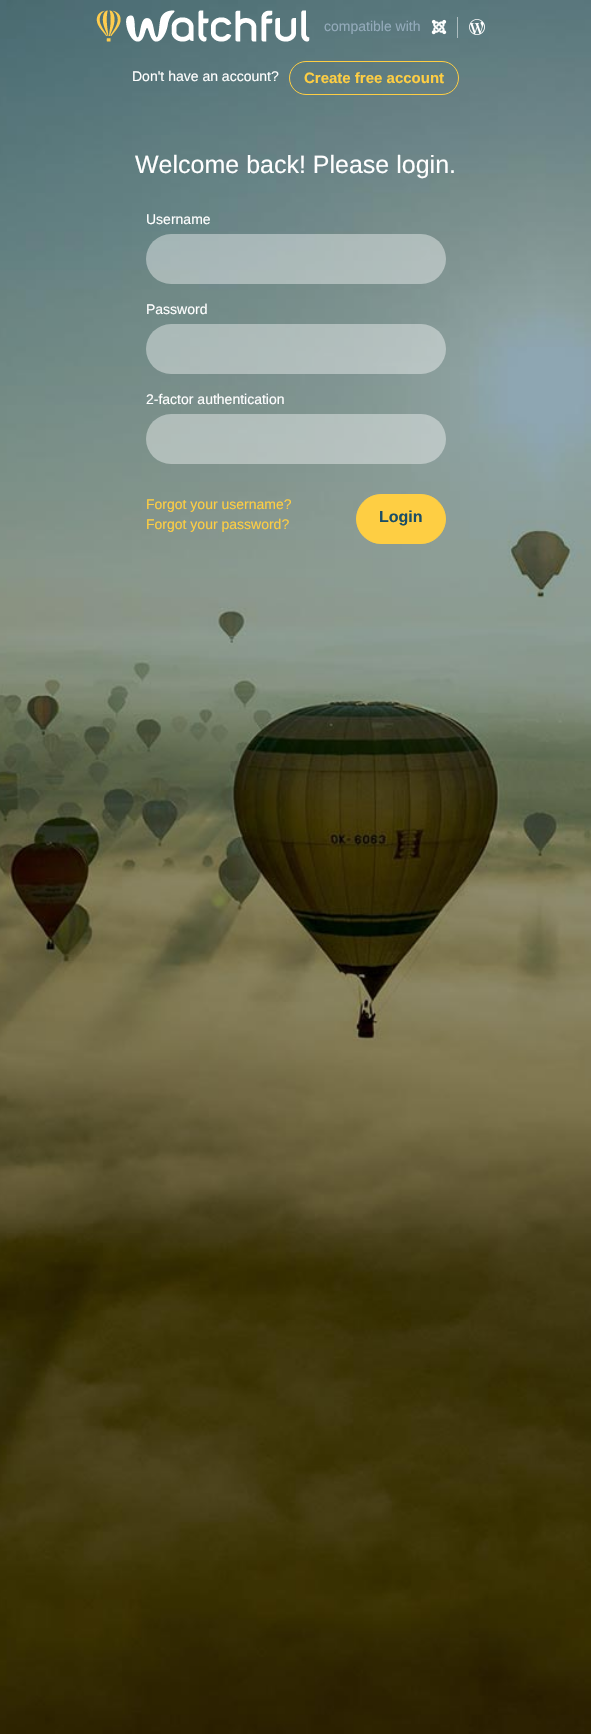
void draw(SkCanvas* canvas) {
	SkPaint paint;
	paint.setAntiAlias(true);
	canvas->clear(0xffffffff);
	canvas->drawImageRect(SkImages::DeferredFromEncodedData(SkData::MakeFromFileName("img1.png")), SkRect::MakeXYWH(0, 0, 591, 1734), SkSamplingOptions());
	canvas->drawImageRect(SkImages::DeferredFromEncodedData(SkData::MakeFromFileName("img2.png")), SkRect::MakeXYWH(96, 10, 214, 32), SkSamplingOptions());
	SkFont f1(fontMgr->matchFamilyStyle("Liberation Sans", SkFontStyle::Normal()), 14);
	f1.setSubpixel(true);
	paint.setColor(0xff93aaba);
	canvas->drawString("compatible with", 324, 31, f1, paint);
	paint.setColor(0x80ffffff);
	canvas->drawRect(SkRect::MakeXYWH(457, 17, 1, 21), paint);
	canvas->drawImageRect(SkImages::DeferredFromEncodedData(SkData::MakeFromFileName("img3.png")), SkRect::MakeXYWH(431, 19, 16, 16), SkSamplingOptions());
	canvas->drawImageRect(SkImages::DeferredFromEncodedData(SkData::MakeFromFileName("img4.png")), SkRect::MakeXYWH(469, 19, 16, 16), SkSamplingOptions());
	paint.setColor(0xffffffff);
	canvas->drawString("Don't have an account?", 132, 81, f1, paint);
	paint.setStroke(true);
	paint.setStrokeWidth(1);
	paint.setColor(0xfffece43);
	canvas->drawRoundRect(SkRect::MakeXYWH(289.5, 61.5, 169, 33), 16.5, 16.5, paint);
	SkFont f2(fontMgr->matchFamilyStyle("Liberation Sans", SkFontStyle::Bold()), 15);
	f2.setSubpixel(true);
	paint.setStroke(false);
	canvas->drawString("Create free account", 304, 83, f2, paint);
	SkFont f3(fontMgr->matchFamilyStyle("Liberation Sans", SkFontStyle::Normal()), 25);
	f3.setSubpixel(true);
	paint.setColor(0xffffffff);
	canvas->drawString("Welcome back! Please login.", 135, 173, f3, paint);
	canvas->drawString("Username", 146, 224, f1, paint);
	paint.setColor(0x66ffffff);
	canvas->drawRoundRect(SkRect::MakeXYWH(146, 234, 300, 50), 25, 25, paint);
	paint.setColor(0xffffffff);
	canvas->drawString("Password", 146, 314, f1, paint);
	paint.setColor(0x66ffffff);
	canvas->drawRoundRect(SkRect::MakeXYWH(146, 324, 300, 50), 25, 25, paint);
	paint.setColor(0xffffffff);
	canvas->drawString("2-factor authentication", 146, 404, f1, paint);
	paint.setColor(0x66ffffff);
	canvas->drawRoundRect(SkRect::MakeXYWH(146, 414, 300, 50), 25, 25, paint);
	paint.setColor(0xfffece43);
	canvas->drawString("Forgot your username?", 146, 509, f1, paint);
	canvas->drawString("Forgot your password?", 146, 529, f1, paint);
	canvas->drawRoundRect(SkRect::MakeXYWH(356.5, 494.5, 89, 49), 24.5, 24.5, paint);
	paint.setStroke(true);
	canvas->drawRoundRect(SkRect::MakeXYWH(356.5, 494.5, 89, 49), 24.5, 24.5, paint);
	SkFont f4(fontMgr->matchFamilyStyle("Liberation Sans", SkFontStyle::Bold()), 16);
	f4.setSubpixel(true);
	paint.setStroke(false);
	paint.setColor(0xff1b4e65);
	canvas->drawString("Login", 379, 522, f4, paint);
}
